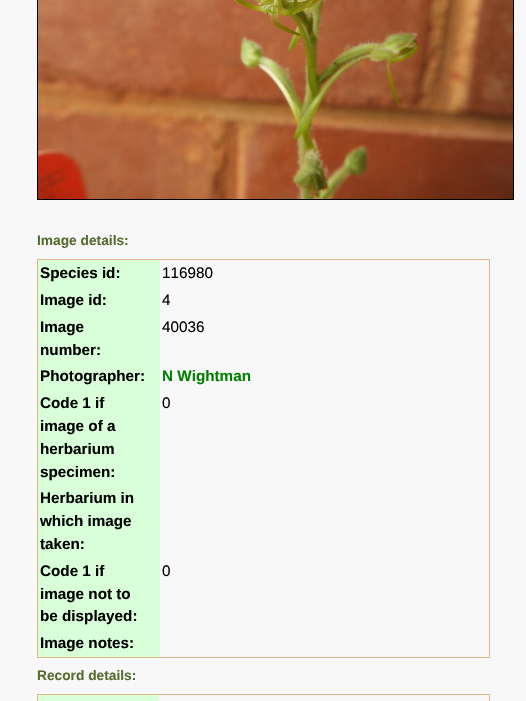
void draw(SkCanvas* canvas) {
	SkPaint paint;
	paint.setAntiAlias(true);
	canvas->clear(0xfff8f8f8);
	paint.setStroke(true);
	paint.setStrokeWidth(1);
	paint.setColor(0xff000000);
	canvas->drawRect(SkRect::MakeXYWH(37.5, -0.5, 476, 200), paint);
	canvas->drawImageRect(SkImages::DeferredFromEncodedData(SkData::MakeFromFileName("img1.png")), SkRect::MakeXYWH(38, 0, 475, 199), SkSamplingOptions());
	SkFont f1(fontMgr->matchFamilyStyle("Liberation Sans", SkFontStyle::Bold()), 13.75);
	f1.setSubpixel(true);
	paint.setStroke(false);
	paint.setColor(0xff556b2f);
	canvas->drawString("Image details:", 37, 245, f1, paint);
	paint.setColor(0xffdeb887);
	canvas->drawRect(SkRect::MakeXYWH(37, 259, 453, 1), paint);
	canvas->drawRect(SkRect::MakeXYWH(489, 259, 1, 399), paint);
	canvas->drawRect(SkRect::MakeXYWH(37, 657, 453, 1), paint);
	canvas->drawRect(SkRect::MakeXYWH(37, 259, 1, 399), paint);
	paint.setColor(0xffd8ffd8);
	canvas->drawRect(SkRect::MakeXYWH(38, 260, 122, 397), paint);
	SkFont f2(fontMgr->matchFamilyStyle("Liberation Sans", SkFontStyle::Bold()), 15.25);
	f2.setSubpixel(true);
	paint.setColor(0xff000000);
	canvas->drawString("Species id:", 40, 278, f2, paint);
	SkFont f3(fontMgr->matchFamilyStyle("Liberation Sans", SkFontStyle::Normal()), 15.25);
	f3.setSubpixel(true);
	canvas->drawString("116980", 162, 278, f3, paint);
	canvas->drawString("Image id:", 40, 305, f2, paint);
	canvas->drawString("4", 162, 305, f3, paint);
	canvas->drawString("Image", 40, 332, f2, paint);
	canvas->drawString("number:", 40, 355, f2, paint);
	canvas->drawString("40036", 162, 332, f3, paint);
	canvas->drawString("Photographer:", 40, 381, f2, paint);
	paint.setColor(0xff008000);
	canvas->drawString("N Wightman", 162, 381, f2, paint);
	paint.setColor(0xff000000);
	canvas->drawString("Code 1 if", 40, 408, f2, paint);
	canvas->drawString("image of a", 40, 431, f2, paint);
	canvas->drawString("herbarium", 40, 454, f2, paint);
	canvas->drawString("specimen:", 40, 477, f2, paint);
	canvas->drawString("0", 162, 408, f3, paint);
	canvas->drawString("Herbarium in", 40, 503, f2, paint);
	canvas->drawString("which image", 40, 526, f2, paint);
	canvas->drawString("taken:", 40, 549, f2, paint);
	canvas->drawString("Code 1 if", 40, 576, f2, paint);
	canvas->drawString("image not to", 40, 599, f2, paint);
	canvas->drawString("be displayed:", 40, 621, f2, paint);
	canvas->drawString("0", 162, 576, f3, paint);
	canvas->drawString("Image notes:", 40, 648, f2, paint);
	paint.setColor(0xff556b2f);
	canvas->drawString("Record details:", 37, 680, f1, paint);
	paint.setColor(0xffdeb887);
	canvas->drawRect(SkRect::MakeXYWH(37, 694, 453, 1), paint);
	canvas->drawRect(SkRect::MakeXYWH(489, 694, 1, 7), paint);
	canvas->drawRect(SkRect::MakeXYWH(37, 694, 1, 7), paint);
	paint.setColor(0xffd8ffd8);
	canvas->drawRect(SkRect::MakeXYWH(38, 695, 121, 6), paint);
}
